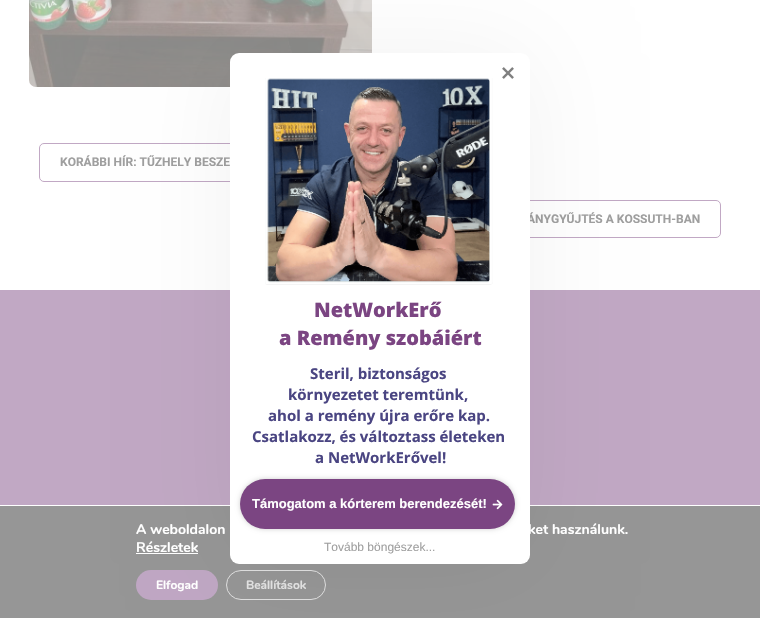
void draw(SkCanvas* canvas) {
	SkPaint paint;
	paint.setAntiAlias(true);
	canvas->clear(0xffffffff);
	canvas->drawImageRect(SkImages::DeferredFromEncodedData(SkData::MakeFromFileName("img1.png")), SkRect::MakeXYWH(29, 0, 343, 87), SkSamplingOptions());
	paint.setStroke(true);
	paint.setStrokeWidth(1);
	paint.setColor(0xffc1a8c4);
	canvas->drawRoundRect(SkRect::MakeXYWH(39.5, 143.5, 343, 38), 4.5, 4.5, paint);
	SkFont f1(fontMgr->matchFamilyStyle("Roboto", SkFontStyle::Bold()), 12);
	f1.setSubpixel(true);
	paint.setStroke(false);
	paint.setColor(0xff9f9f9f);
	canvas->drawString("KORÁBBI HÍR: TŰZHELY BESZE", 60, 166, f1, paint);
	paint.setStroke(true);
	paint.setColor(0xffc1a8c4);
	canvas->drawRoundRect(SkRect::MakeXYWH(388.5, 200.5, 332, 37), 4.5, 4.5, paint);
	paint.setStroke(false);
	paint.setColor(0xff9f9f9f);
	canvas->drawString("ÁNYGYŰJTÉS A KOSSUTH-BAN", 527, 223, f1, paint);
	paint.setColor(0xffc1a8c4);
	canvas->drawRect(SkRect::MakeXYWH(0, 290, 760, 215), paint);
	paint.setColor(0xff969696);
	canvas->drawRect(SkRect::MakeXYWH(0, 506, 760, 112), paint);
	paint.setColor(0xffffffff);
	canvas->drawRect(SkRect::MakeXYWH(136, 553, 62, 1), paint);
	paint.setColor(0xffc0a7c4);
	canvas->drawRoundRect(SkRect::MakeXYWH(136, 570, 82, 30), 15, 15, paint);
	paint.setStroke(true);
	paint.setColor(0xffe0e0e0);
	canvas->drawRoundRect(SkRect::MakeXYWH(226.5, 570.5, 99, 29), 14.5, 14.5, paint);
	paint.setStroke(false);
	paint.setColor(0x0d000000);
	paint.setMaskFilter(SkMaskFilter::MakeBlur(kNormal_SkBlurStyle, 50));
	canvas->drawRoundRect(SkRect::MakeXYWH(230, 53, 300, 511), 9, 9, paint);
	paint.setMaskFilter(nullptr);
	paint.setColor(0xffffffff);
	canvas->drawRoundRect(SkRect::MakeXYWH(230, 53, 300, 511), 9, 9, paint);
	canvas->drawImageRect(SkImages::DeferredFromEncodedData(SkData::MakeFromFileName("img2.png")), SkRect::MakeXYWH(502, 67, 12, 12), SkSamplingOptions());
	canvas->drawImageRect(SkImages::DeferredFromEncodedData(SkData::MakeFromFileName("img3.png")), SkRect::MakeXYWH(265, 78, 228, 207), SkSamplingOptions());
	SkFont f2(fontMgr->matchFamilyStyle("Open Sans", SkFontStyle(800, SkFontStyle::kNormal_Width, SkFontStyle::kUpright_Slant)), 20);
	f2.setSubpixel(true);
	paint.setColor(0xff7b4582);
	canvas->drawString("NetWorkErő", 314, 317, f2, paint);
	canvas->drawString("a Remény szobáiért", 279, 345, f2, paint);
	SkFont f3(fontMgr->matchFamilyStyle("Open Sans", SkFontStyle::Bold()), 15);
	f3.setSubpixel(true);
	paint.setColor(0xff4a4582);
	canvas->drawString("Steril, biztonságos", 310, 379, f3, paint);
	canvas->drawString("környezetet teremtünk,", 288, 400, f3, paint);
	canvas->drawString("ahol a remény újra erőre kap.", 268, 421, f3, paint);
	canvas->drawString("Csatlakozz, és változtass életeken", 252, 442, f3, paint);
	canvas->drawString("a NetWorkErővel!", 315, 463, f3, paint);
	paint.setColor(0x30000000);
	paint.setMaskFilter(SkMaskFilter::MakeBlur(kNormal_SkBlurStyle, 2.5));
	canvas->drawRoundRect(SkRect::MakeXYWH(240, 479, 275, 50), 25, 25, paint);
	paint.setMaskFilter(nullptr);
	paint.setColor(0xff7b4582);
	canvas->drawRoundRect(SkRect::MakeXYWH(240, 479, 275, 50), 25, 25, paint);
	SkFont f4(fontMgr->matchFamilyStyle("Liberation Sans", SkFontStyle::Bold()), 13);
	f4.setSubpixel(true);
	paint.setColor(0xffffffff);
	canvas->drawString("Támogatom a kórterem berendezését!", 252, 508, f4, paint);
	canvas->drawImageRect(SkImages::DeferredFromEncodedData(SkData::MakeFromFileName("img4.png")), SkRect::MakeXYWH(492, 499, 11, 11), SkSamplingOptions());
	SkFont f5(fontMgr->matchFamilyStyle("Liberation Sans", SkFontStyle::Normal()), 12);
	f5.setSubpixel(true);
	paint.setColor(0xff9f9f9f);
	canvas->drawString("Tovább böngészek...", 324, 551, f5, paint);
	SkFont f6(fontMgr->matchFamilyStyle("Nunito", SkFontStyle::Bold()), 14);
	f6.setSubpixel(true);
	paint.setColor(0xffffffff);
	canvas->drawString("A weboldalon", 136, 534, f6, paint);
	canvas->drawString("ket használunk.", 528, 534, f6, paint);
	canvas->drawString("Részletek", 136, 552, f6, paint);
	SkFont f7(fontMgr->matchFamilyStyle("Nunito", SkFontStyle::Bold()), 12);
	f7.setSubpixel(true);
	canvas->drawString("Elfogad", 156, 589, f7, paint);
	paint.setColor(0xffe0e0e0);
	canvas->drawString("Beállítások", 246, 589, f7, paint);
}
